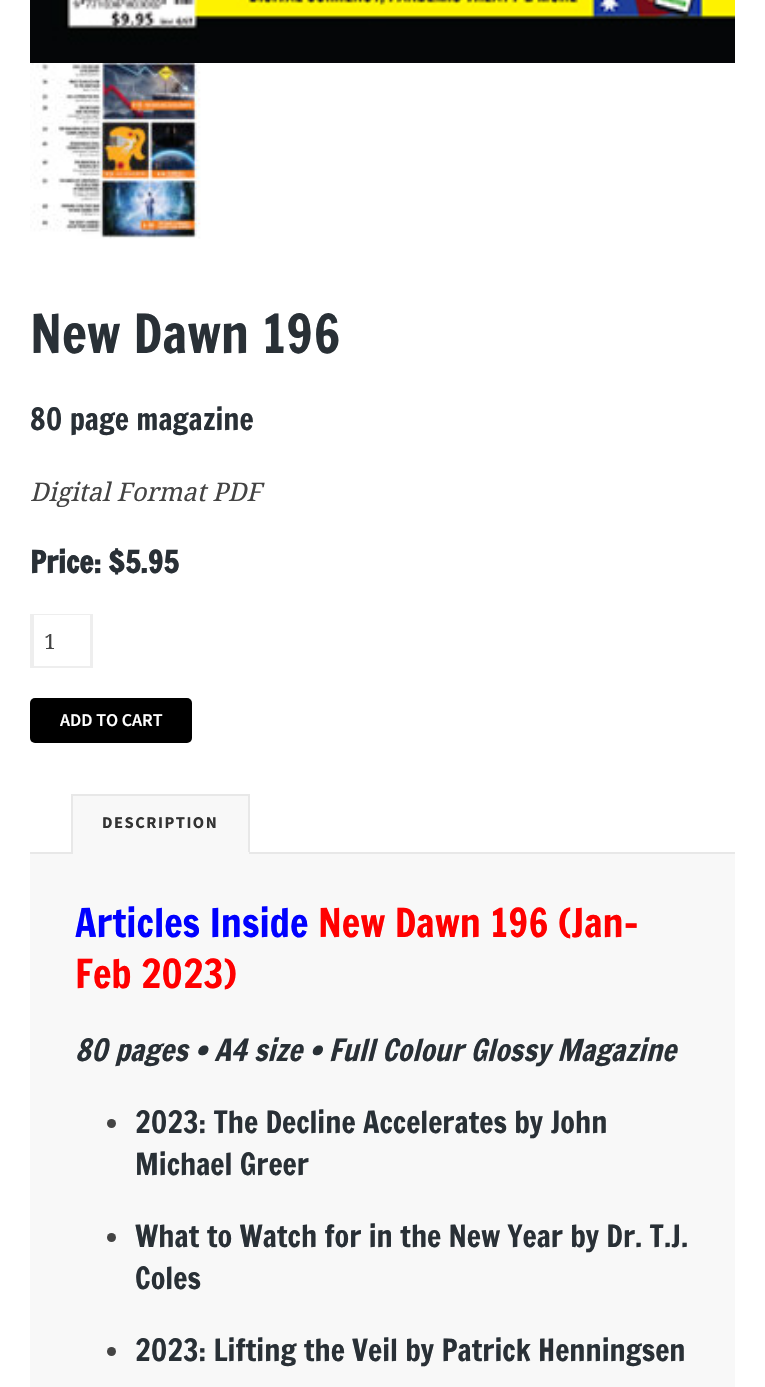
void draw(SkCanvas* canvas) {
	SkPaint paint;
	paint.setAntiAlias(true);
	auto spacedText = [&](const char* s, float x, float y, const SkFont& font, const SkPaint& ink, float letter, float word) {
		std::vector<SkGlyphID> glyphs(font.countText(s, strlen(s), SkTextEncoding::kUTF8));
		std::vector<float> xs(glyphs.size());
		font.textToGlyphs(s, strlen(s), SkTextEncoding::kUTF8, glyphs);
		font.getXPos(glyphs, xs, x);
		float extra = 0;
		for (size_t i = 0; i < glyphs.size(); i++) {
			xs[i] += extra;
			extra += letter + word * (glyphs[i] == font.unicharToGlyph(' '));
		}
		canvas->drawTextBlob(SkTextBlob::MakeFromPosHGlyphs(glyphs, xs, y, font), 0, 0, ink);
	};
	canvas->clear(0xffffffff);
	canvas->drawImageRect(SkImages::DeferredFromEncodedData(SkData::MakeFromFileName("img1.png")), SkRect::MakeXYWH(30, 0, 705, 63), SkSamplingOptions());
	canvas->drawImageRect(SkImages::DeferredFromEncodedData(SkData::MakeFromFileName("img2.png")), SkRect::MakeXYWH(30, 63, 171, 176), SkSamplingOptions());
	SkFont f1(fontMgr->matchFamilyStyle("Francois One", SkFontStyle::Normal()), 52.5);
	f1.setSubpixel(true);
	paint.setColor(0xff293036);
	canvas->drawString("New Dawn 196", 30, 353, f1, paint);
	SkFont f2(fontMgr->matchFamilyStyle("Francois One", SkFontStyle::Normal()), 30);
	f2.setSubpixel(true);
	canvas->drawString("80 page magazine", 30, 430, f2, paint);
	SkFont f3(fontMgr->matchFamilyStyle("Noto Serif", SkFontStyle::Italic()), 25.5);
	f3.setSubpixel(true);
	paint.setColor(0xff444444);
	canvas->drawString("Digital Format PDF", 30, 501, f3, paint);
	SkFont f4(fontMgr->matchFamilyStyle("Francois One", SkFontStyle::Bold()), 30);
	f4.setSubpixel(true);
	paint.setColor(0xff293036);
	canvas->drawString("Price: $5.95", 30, 573, f4, paint);
	paint.setStroke(true);
	paint.setStrokeWidth(2);
	paint.setColor(0xffeeeeee);
	canvas->drawRect(SkRect::MakeXYWH(31, 615, 61, 52), paint);
	paint.setStroke(false);
	paint.setColor(0xffffffff);
	canvas->drawRect(SkRect::MakeXYWH(34, 615, 56, 1), paint);
	paint.setColor(0xffeeeeee);
	canvas->drawRect(SkRect::MakeXYWH(90, 615, 1, 51), paint);
	canvas->drawRect(SkRect::MakeXYWH(32, 615, 2, 51), paint);
	SkFont f5(fontMgr->matchFamilyStyle("Noto Serif", SkFontStyle::Normal()), 21);
	f5.setSubpixel(true);
	paint.setColor(0xff444444);
	canvas->drawString("1", 44, 649, f5, paint);
	paint.setColor(0xff000000);
	canvas->drawRoundRect(SkRect::MakeXYWH(30, 698, 162, 45), 5, 5, paint);
	SkFont f6(fontMgr->matchFamilyStyle("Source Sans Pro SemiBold", SkFontStyle(600, SkFontStyle::kNormal_Width, SkFontStyle::kUpright_Slant)), 18);
	f6.setSubpixel(true);
	paint.setColor(0xffffffff);
	canvas->drawString("ADD TO CART", 60, 726, f6, paint);
	paint.setColor(0xfff8f8f8);
	canvas->drawRect(SkRect::MakeXYWH(73, 796, 175, 56), paint);
	paint.setColor(0xffe8e8e8);
	canvas->drawRect(SkRect::MakeXYWH(71, 794, 178, 2), paint);
	canvas->drawRect(SkRect::MakeXYWH(30, 852, 705, 2), paint);
	canvas->drawRect(SkRect::MakeXYWH(248, 794, 2, 60), paint);
	paint.setColor(0xfff8f8f8);
	canvas->drawRect(SkRect::MakeXYWH(71, 852, 178, 2), paint);
	paint.setColor(0xffe8e8e8);
	canvas->drawRect(SkRect::MakeXYWH(71, 794, 2, 60), paint);
	SkFont f7(fontMgr->matchFamilyStyle("Source Sans Pro", SkFontStyle::Bold()), 16.5);
	f7.setSubpixel(true);
	paint.setColor(0xff333333);
	spacedText("DESCRIPTION", 102, 828, f7, paint, 1.5, 0);
	paint.setColor(0xfff8f8f8);
	canvas->drawRect(SkRect::MakeXYWH(30, 854, 705, 533), paint);
	SkFont f8(fontMgr->matchFamilyStyle("Francois One", SkFontStyle::Normal()), 39);
	f8.setSubpixel(true);
	paint.setColor(0xff0000ff);
	canvas->drawString("Articles Inside", 75, 937, f8, paint);
	paint.setColor(0xffff0000);
	canvas->drawString("New Dawn 196 (Jan-", 318, 937, f8, paint);
	canvas->drawString("Feb 2023)", 75, 988, f8, paint);
	SkFont f9(fontMgr->matchFamilyStyle("Francois One", SkFontStyle::Italic()), 30);
	f9.setSubpixel(true);
	paint.setColor(0xff293036);
	canvas->drawString("80 pages • A4 size • Full Colour Glossy Magazine", 75, 1061, f9, paint);
	paint.setColor(0xff444444);
	canvas->drawCircle(111.5, 1123.5, 4.5, paint);
	paint.setColor(0xff293036);
	canvas->drawString("2023: The Decline Accelerates by John", 135, 1133, f2, paint);
	canvas->drawString("Michael Greer", 135, 1175, f2, paint);
	paint.setColor(0xff444444);
	canvas->drawCircle(111.5, 1237.5, 4.5, paint);
	paint.setColor(0xff293036);
	canvas->drawString("What to Watch for in the New Year by Dr. T.J.", 135, 1247, f2, paint);
	canvas->drawString("Coles", 135, 1289, f2, paint);
	paint.setColor(0xff444444);
	canvas->drawCircle(111.5, 1351.5, 4.5, paint);
	paint.setColor(0xff293036);
	canvas->drawString("2023: Lifting the Veil by Patrick Henningsen", 135, 1361, f2, paint);
}
